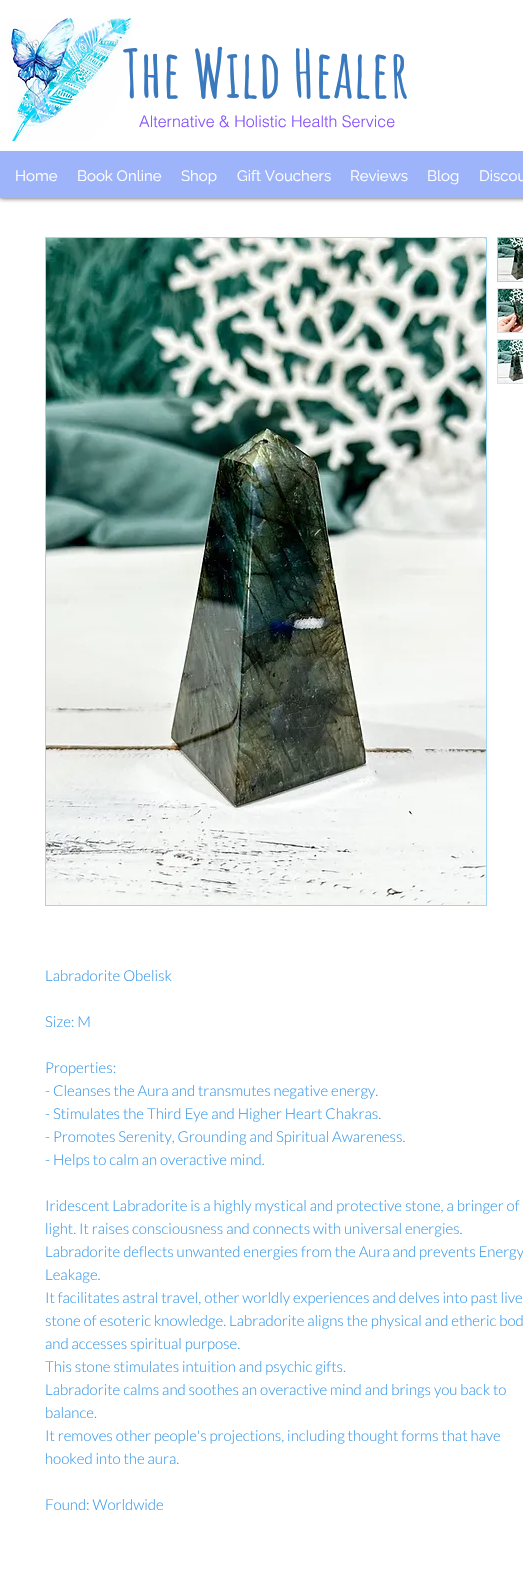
void draw(SkCanvas* canvas) {
	SkPaint paint;
	paint.setAntiAlias(true);
	canvas->clear(0xffffffff);
	canvas->save();
	canvas->clipRect(SkRect::MakeXYWH(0, 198, 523, 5));
	paint.setColor(0xb3000000);
	paint.setMaskFilter(SkMaskFilter::MakeBlur(kNormal_SkBlurStyle, 2.5));
	canvas->drawRect(SkRect::MakeXYWH(0, 0, 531, 198), paint);
	paint.setMaskFilter(nullptr);
	canvas->restore();
	canvas->drawImageRect(SkImages::DeferredFromEncodedData(SkData::MakeFromFileName("img1.png")), SkRect::MakeXYWH(9, 18, 124, 123), SkSamplingOptions());
	SkFont f1(fontMgr->matchFamilyStyle("Amatic SC", SkFontStyle::Bold()), 66);
	f1.setSubpixel(true);
	paint.setColor(0xff3a79bd);
	canvas->drawString("The Wild Healer", 123, 98, f1, paint);
	SkFont f2(fontMgr->matchFamilyStyle("helvetica", SkFontStyle(300, SkFontStyle::kNormal_Width, SkFontStyle::kUpright_Slant)), 16);
	f2.setSubpixel(true);
	paint.setColor(0xff8752fa);
	canvas->drawString("Alternative & Holistic Health Service", 139, 127, f2, paint);
	paint.setColor(0xff9db3fa);
	canvas->drawRect(SkRect::MakeXYWH(0, 151, 523, 47), paint);
	SkFont f3(fontMgr->matchFamilyStyle("Raleway", SkFontStyle::Normal()), 15);
	f3.setSubpixel(true);
	paint.setColor(0xffffffff);
	canvas->drawString("Home", 15, 181, f3, paint);
	canvas->drawString("Book Online", 77, 181, f3, paint);
	canvas->drawString("Shop", 181, 181, f3, paint);
	canvas->drawString("Gift Vouchers", 237, 181, f3, paint);
	canvas->drawString("Reviews", 350, 181, f3, paint);
	canvas->drawString("Blog", 427, 181, f3, paint);
	canvas->drawString("Discou", 479, 181, f3, paint);
	paint.setStroke(true);
	paint.setStrokeWidth(1);
	paint.setColor(0xff9ed7f4);
	canvas->drawRect(SkRect::MakeXYWH(45.5, 237.5, 441, 668), paint);
	canvas->drawImageRect(SkImages::DeferredFromEncodedData(SkData::MakeFromFileName("img2.png")), SkRect::MakeXYWH(46, 238, 440, 667), SkSamplingOptions());
	canvas->drawRect(SkRect::MakeXYWH(497.5, 237.5, 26, 44), paint);
	canvas->drawImageRect(SkImages::DeferredFromEncodedData(SkData::MakeFromFileName("img3.png")), SkRect::MakeXYWH(498, 238, 25, 43), SkSamplingOptions());
	paint.setColor(0xffdfdfdf);
	canvas->drawRect(SkRect::MakeXYWH(497.5, 288.5, 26, 44), paint);
	canvas->drawImageRect(SkImages::DeferredFromEncodedData(SkData::MakeFromFileName("img4.png")), SkRect::MakeXYWH(498, 289, 25, 43), SkSamplingOptions());
	canvas->drawRect(SkRect::MakeXYWH(497.5, 339.5, 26, 44), paint);
	canvas->drawImageRect(SkImages::DeferredFromEncodedData(SkData::MakeFromFileName("img5.png")), SkRect::MakeXYWH(498, 340, 25, 43), SkSamplingOptions());
	SkFont f4(fontMgr->matchFamilyStyle("Lato", SkFontStyle(300, SkFontStyle::kNormal_Width, SkFontStyle::kUpright_Slant)), 15);
	f4.setSubpixel(true);
	paint.setStroke(false);
	paint.setColor(0xff3d9be9);
	canvas->drawString("Labradorite Obelisk", 45, 981, f4, paint);
	canvas->drawString("Size: M", 45, 1027, f4, paint);
	canvas->drawString("Properties:", 45, 1073, f4, paint);
	canvas->drawString("- Cleanses the Aura and transmutes negative energy.", 45, 1096, f4, paint);
	canvas->drawString("- Stimulates the Third Eye and Higher Heart Chakras.", 45, 1119, f4, paint);
	canvas->drawString("- Promotes Serenity, Grounding and Spiritual Awareness.", 45, 1142, f4, paint);
	canvas->drawString("- Helps to calm an overactive mind.", 45, 1165, f4, paint);
	canvas->drawString("Iridescent Labradorite is a highly mystical and protective stone, a bringer of", 45, 1211, f4, paint);
	canvas->drawString("light. It raises consciousness and connects with universal energies.", 45, 1234, f4, paint);
	canvas->drawString("Labradorite deflects unwanted energies from the Aura and prevents Energy", 45, 1257, f4, paint);
	canvas->drawString("Leakage.", 45, 1280, f4, paint);
	canvas->drawString("It facilitates astral travel, other worldly experiences and delves into past live", 45, 1303, f4, paint);
	canvas->drawString("stone of esoteric knowledge. Labradorite aligns the physical and etheric bod", 45, 1326, f4, paint);
	canvas->drawString("and accesses spiritual purpose.", 45, 1349, f4, paint);
	canvas->drawString("This stone stimulates intuition and psychic gifts.", 45, 1372, f4, paint);
	canvas->drawString("Labradorite calms and soothes an overactive mind and brings you back to", 45, 1395, f4, paint);
	canvas->drawString("balance.", 45, 1418, f4, paint);
	canvas->drawString("It removes other people's projections, including thought forms that have", 45, 1441, f4, paint);
	canvas->drawString("hooked into the aura.", 45, 1464, f4, paint);
	canvas->drawString("Found: Worldwide", 45, 1510, f4, paint);
}
